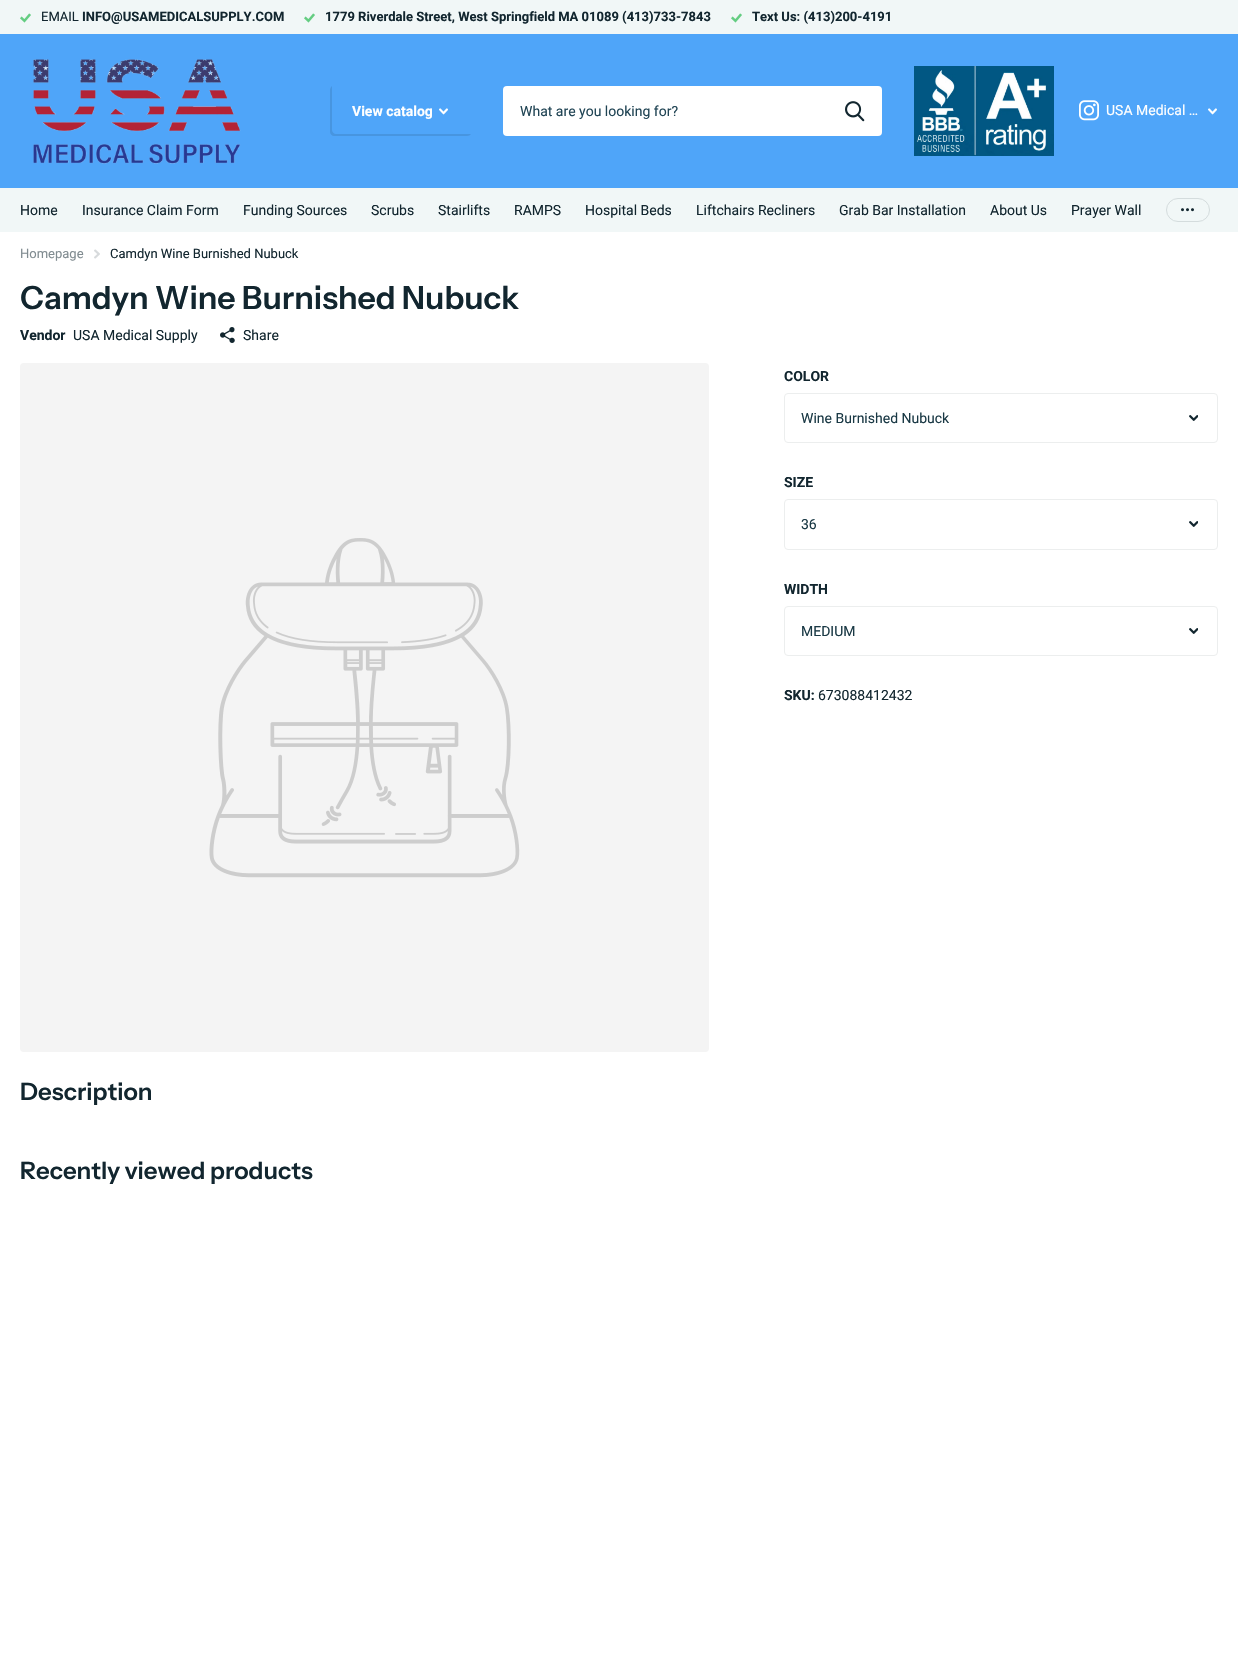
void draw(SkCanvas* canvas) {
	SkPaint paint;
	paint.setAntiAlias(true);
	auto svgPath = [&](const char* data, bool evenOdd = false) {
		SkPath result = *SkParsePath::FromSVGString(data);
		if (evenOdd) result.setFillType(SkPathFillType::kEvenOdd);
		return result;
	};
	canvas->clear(0xffffffff);
	paint.setColor(0xfff1f7f7);
	canvas->drawRect(SkRect::MakeXYWH(0, 0, 1238, 34), paint);
	canvas->drawImageRect(SkImages::DeferredFromEncodedData(SkData::MakeFromFileName("img1.png")), SkRect::MakeXYWH(20, 13, 11, 10), SkSamplingOptions());
	SkFont f1(fontMgr->matchFamilyStyle("Roboto", SkFontStyle::Normal()), 13);
	f1.setSubpixel(true);
	paint.setColor(0xff12262f);
	canvas->drawString("EMAIL", 41, 21, f1, paint);
	SkFont f2(fontMgr->matchFamilyStyle("Roboto", SkFontStyle::Bold()), 13);
	f2.setSubpixel(true);
	canvas->drawString("INFO@USAMEDICALSUPPLY.COM", 82, 21, f2, paint);
	canvas->drawImageRect(SkImages::DeferredFromEncodedData(SkData::MakeFromFileName("img1.png")), SkRect::MakeXYWH(304, 13, 11, 10), SkSamplingOptions());
	canvas->drawString("1779 Riverdale Street, West Springfield MA 01089 (413)733-7843", 325, 21, f2, paint);
	canvas->drawImageRect(SkImages::DeferredFromEncodedData(SkData::MakeFromFileName("img1.png")), SkRect::MakeXYWH(731, 13, 11, 10), SkSamplingOptions());
	canvas->drawString("Text Us: (413)200-4191", 752, 21, f2, paint);
	paint.setColor(0xff4fa5f9);
	canvas->drawRect(SkRect::MakeXYWH(0, 34, 1238, 154), paint);
	paint.setColor(0xfff1f7f7);
	canvas->drawRect(SkRect::MakeXYWH(0, 188, 1238, 44), paint);
	canvas->drawImageRect(SkImages::DeferredFromEncodedData(SkData::MakeFromFileName("img2.png")), SkRect::MakeXYWH(33, 59, 208, 105), SkSamplingOptions());
	paint.setColor(0xff4795e0);
	canvas->drawPath(svgPath("M332 86C331 87 330 88 330 90V132C330 134 332 136 334 136H467C469 136 470 135 471 134H469H336C334 134 332 132 332 130V88Z"), paint);
	SkFont f3(fontMgr->matchFamilyStyle("Roboto", SkFontStyle::Bold()), 14);
	f3.setSubpixel(true);
	paint.setColor(0xffffffff);
	canvas->drawString("View catalog", 352, 116, f3, paint);
	canvas->drawImageRect(SkImages::DeferredFromEncodedData(SkData::MakeFromFileName("img3.png")), SkRect::MakeXYWH(439, 108, 9, 7), SkSamplingOptions());
	canvas->drawRoundRect(SkRect::MakeXYWH(503, 86, 379, 50), 4, 4, paint);
	SkFont f4(fontMgr->matchFamilyStyle("Roboto", SkFontStyle::Normal()), 14);
	f4.setSubpixel(true);
	paint.setColor(0xff204454);
	canvas->drawString("What are you looking for?", 520, 116, f4, paint);
	canvas->drawImageRect(SkImages::DeferredFromEncodedData(SkData::MakeFromFileName("img4.png")), SkRect::MakeXYWH(845, 101, 20, 21), SkSamplingOptions());
	canvas->drawImageRect(SkImages::DeferredFromEncodedData(SkData::MakeFromFileName("img5.png")), SkRect::MakeXYWH(914, 66, 140, 90), SkSamplingOptions());
	canvas->drawImageRect(SkImages::DeferredFromEncodedData(SkData::MakeFromFileName("img6.png")), SkRect::MakeXYWH(1079, 100, 20, 21), SkSamplingOptions());
	paint.setColor(0xffffffff);
	canvas->drawString("USA Medical …", 1106, 115, f4, paint);
	canvas->drawImageRect(SkImages::DeferredFromEncodedData(SkData::MakeFromFileName("img3.png")), SkRect::MakeXYWH(1208, 108, 9, 7), SkSamplingOptions());
	paint.setColor(0xff12262f);
	canvas->drawString("Home", 20, 215, f4, paint);
	canvas->drawString("Insurance Claim Form", 82, 215, f4, paint);
	canvas->drawString("Funding Sources", 243, 215, f4, paint);
	canvas->drawString("Scrubs", 371, 215, f4, paint);
	canvas->drawString("Stairlifts", 438, 215, f4, paint);
	canvas->drawString("RAMPS", 514, 215, f4, paint);
	canvas->drawString("Hospital Beds", 585, 215, f4, paint);
	canvas->drawString("Liftchairs Recliners", 696, 215, f4, paint);
	canvas->drawString("Grab Bar Installation", 839, 215, f4, paint);
	canvas->drawString("About Us", 990, 215, f4, paint);
	canvas->drawString("Prayer Wall", 1071, 215, f4, paint);
	paint.setStroke(true);
	paint.setStrokeWidth(1);
	paint.setColor(0xffd4dcdd);
	canvas->drawRoundRect(SkRect::MakeXYWH(1166.5, 198.5, 43, 23), 11.5, 11.5, paint);
	canvas->drawImageRect(SkImages::DeferredFromEncodedData(SkData::MakeFromFileName("img7.png")), SkRect::MakeXYWH(1181, 208, 13, 4), SkSamplingOptions());
	paint.setStroke(false);
	paint.setColor(0xff818c91);
	canvas->drawString("Homepage", 20, 258, f1, paint);
	canvas->drawImageRect(SkImages::DeferredFromEncodedData(SkData::MakeFromFileName("img8.png")), SkRect::MakeXYWH(94, 249, 6, 10), SkSamplingOptions());
	paint.setColor(0xff12262f);
	canvas->drawString("Camdyn Wine Burnished Nubuck", 110, 258, f1, paint);
	SkFont f5(fontMgr->matchFamilyStyle("Instrument Sans", SkFontStyle(600, SkFontStyle::kNormal_Width, SkFontStyle::kUpright_Slant)), 32);
	f5.setSubpixel(true);
	canvas->drawString("Camdyn Wine Burnished Nubuck", 20, 309, f5, paint);
	canvas->drawString("Vendor", 20, 340, f3, paint);
	canvas->drawString("USA Medical Supply", 73, 340, f4, paint);
	canvas->drawImageRect(SkImages::DeferredFromEncodedData(SkData::MakeFromFileName("img9.png")), SkRect::MakeXYWH(220, 327, 15, 16), SkSamplingOptions());
	canvas->drawString("Share", 243, 340, f4, paint);
	canvas->drawString("COLOR", 784, 381, f3, paint);
	canvas->drawImageRect(SkImages::DeferredFromEncodedData(SkData::MakeFromFileName("img10.png")), SkRect::MakeXYWH(1189, 415, 9, 6), SkSamplingOptions());
	paint.setStroke(true);
	paint.setColor(0xffeceeee);
	canvas->drawRoundRect(SkRect::MakeXYWH(784.5, 393.5, 433, 49), 3.5, 3.5, paint);
	paint.setStroke(false);
	paint.setColor(0xff1a3945);
	canvas->drawString("Wine Burnished Nubuck", 801, 423, f4, paint);
	paint.setColor(0xff12262f);
	canvas->drawString("SIZE", 784, 487, f3, paint);
	canvas->drawImageRect(SkImages::DeferredFromEncodedData(SkData::MakeFromFileName("img10.png")), SkRect::MakeXYWH(1189, 521, 9, 6), SkSamplingOptions());
	paint.setStroke(true);
	paint.setColor(0xffeceeee);
	canvas->drawRoundRect(SkRect::MakeXYWH(784.5, 499.5, 433, 50), 3.5, 3.5, paint);
	paint.setStroke(false);
	paint.setColor(0xff1a3945);
	canvas->drawString("36", 801, 529, f4, paint);
	paint.setColor(0xff12262f);
	canvas->drawString("WIDTH", 784, 594, f3, paint);
	canvas->drawImageRect(SkImages::DeferredFromEncodedData(SkData::MakeFromFileName("img10.png")), SkRect::MakeXYWH(1189, 628, 9, 6), SkSamplingOptions());
	paint.setStroke(true);
	paint.setColor(0xffeceeee);
	canvas->drawRoundRect(SkRect::MakeXYWH(784.5, 606.5, 433, 49), 3.5, 3.5, paint);
	paint.setStroke(false);
	paint.setColor(0xff1a3945);
	canvas->drawString("MEDIUM", 801, 636, f4, paint);
	paint.setColor(0xff12262f);
	canvas->drawString("SKU:", 784, 700, f3, paint);
	canvas->drawString("673088412432", 818, 700, f4, paint);
	paint.setColor(0xfff4f4f4);
	canvas->drawRoundRect(SkRect::MakeXYWH(20, 363, 689, 689), 4, 4, paint);
	canvas->drawImageRect(SkImages::DeferredFromEncodedData(SkData::MakeFromFileName("img11.png")), SkRect::MakeXYWH(209, 538, 311, 340), SkSamplingOptions());
	SkFont f6(fontMgr->matchFamilyStyle("Instrument Sans", SkFontStyle(600, SkFontStyle::kNormal_Width, SkFontStyle::kUpright_Slant)), 24);
	f6.setSubpixel(true);
	paint.setColor(0xff12262f);
	canvas->drawString("Description", 20, 1100, f6, paint);
	canvas->drawString("Recently viewed products", 20, 1179, f6, paint);
}
